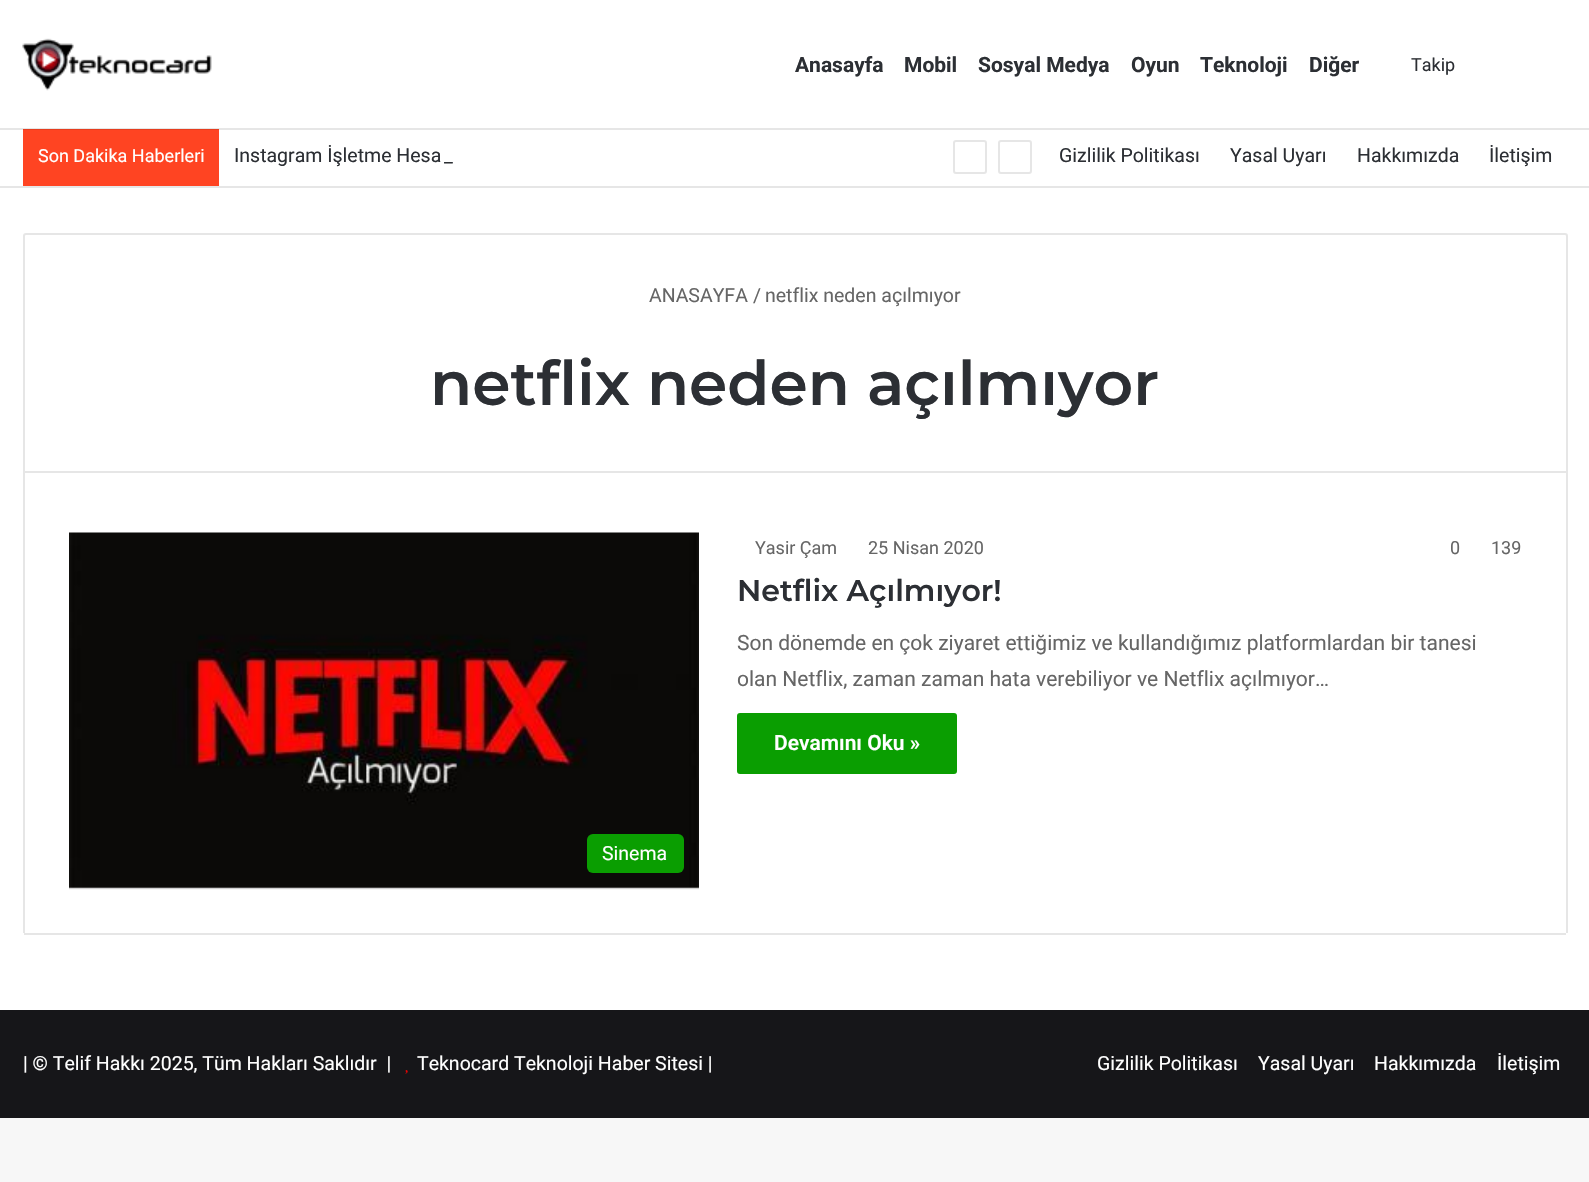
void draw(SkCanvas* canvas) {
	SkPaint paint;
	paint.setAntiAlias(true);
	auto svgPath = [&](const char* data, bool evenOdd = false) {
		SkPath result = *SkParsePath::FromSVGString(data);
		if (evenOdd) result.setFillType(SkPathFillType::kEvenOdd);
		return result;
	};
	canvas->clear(0xfff7f7f7);
	paint.setColor(0xffffffff);
	canvas->drawRect(SkRect::MakeXYWH(0, 0, 1589, 1010), paint);
	paint.setColor(0xffe6e6e6);
	canvas->drawRect(SkRect::MakeXYWH(0, 128, 1589, 2), paint);
	canvas->drawImageRect(SkImages::DeferredFromEncodedData(SkData::MakeFromFileName("img1.png")), SkRect::MakeXYWH(22, 38, 190, 53), SkSamplingOptions());
	SkFont f1(fontMgr->matchFamilyStyle("Roboto", SkFontStyle::Bold()), 21);
	f1.setSubpixel(true);
	paint.setColor(0xff2c2f34);
	canvas->drawString("Anasayfa", 795, 72, f1, paint);
	canvas->drawString("Mobil", 904, 72, f1, paint);
	canvas->drawString("Sosyal Medya", 978, 72, f1, paint);
	canvas->drawString("Oyun", 1131, 72, f1, paint);
	canvas->drawString("Teknoloji", 1200, 72, f1, paint);
	canvas->drawString("Diğer", 1309, 72, f1, paint);
	SkFont f2(fontMgr->matchFamilyStyle("Roboto", SkFontStyle::Normal()), 18);
	f2.setSubpixel(true);
	canvas->drawString("Takip", 1411, 71, f2, paint);
	paint.setColor(0xffe6e6e6);
	canvas->drawRect(SkRect::MakeXYWH(0, 186, 1589, 2), paint);
	paint.setColor(0xffff4422);
	canvas->drawRect(SkRect::MakeXYWH(23, 130, 196, 56), paint);
	paint.setColor(0xffe63d1f);
	canvas->drawRect(SkRect::MakeXYWH(23, 129, 196, 1), paint);
	paint.setColor(0xffffffff);
	canvas->drawString("Son Dakika Haberleri", 38, 162, f2, paint);
	SkFont f3(fontMgr->matchFamilyStyle("Roboto", SkFontStyle::Normal()), 19.5);
	f3.setSubpixel(true);
	paint.setColor(0xff2c2f34);
	canvas->drawString("Instagram İşletme Hesa", 234, 162, f3, paint);
	canvas->drawString("_", 444, 162, f3, paint);
	paint.setStroke(true);
	paint.setStrokeWidth(2);
	paint.setColor(0xffe6e6e6);
	canvas->drawRoundRect(SkRect::MakeXYWH(954, 141, 32, 32), 2, 2, paint);
	canvas->drawRoundRect(SkRect::MakeXYWH(999, 141, 32, 32), 2, 2, paint);
	paint.setStroke(false);
	paint.setColor(0xff2c2f34);
	canvas->drawString("Gizlilik Politikası", 1059, 162, f3, paint);
	canvas->drawString("Yasal Uyarı", 1230, 162, f3, paint);
	canvas->drawString("Hakkımızda", 1357, 162, f3, paint);
	canvas->drawString("İletişim", 1489, 162, f3, paint);
	paint.setStroke(true);
	paint.setColor(0xffe6e6e6);
	canvas->drawPath(svgPath("M26 234H1565C1566 234 1567 235 1567 236V472H24V236C24 235 25 234 26 234Z"), paint);
	paint.setStroke(false);
	paint.setColor(0xff666666);
	canvas->drawString("ANASAYFA", 649, 302, f3, paint);
	canvas->drawString("/", 753, 302, f3, paint);
	canvas->drawString("netflix neden açılmıyor", 765, 302, f3, paint);
	SkFont f4(fontMgr->matchFamilyStyle("Montserrat", SkFontStyle(600, SkFontStyle::kNormal_Width, SkFontStyle::kUpright_Slant)), 61.5);
	f4.setSubpixel(true);
	paint.setColor(0xff2c2f34);
	canvas->drawString("netflix neden açılmıyor", 430, 405, f4, paint);
	paint.setColor(0xffe6e6e6);
	canvas->drawRect(SkRect::MakeXYWH(1566, 473, 2, 460), paint);
	canvas->drawRect(SkRect::MakeXYWH(24, 933, 1542, 2), paint);
	canvas->drawRect(SkRect::MakeXYWH(23, 473, 2, 460), paint);
	paint.setColor(0xff666666);
	canvas->drawString("Yasir Çam", 755, 554, f2, paint);
	canvas->drawString("25 Nisan 2020", 868, 554, f2, paint);
	canvas->drawString("0", 1450, 554, f2, paint);
	canvas->drawString("139", 1491, 554, f2, paint);
	SkFont f5(fontMgr->matchFamilyStyle("Montserrat", SkFontStyle(600, SkFontStyle::kNormal_Width, SkFontStyle::kUpright_Slant)), 30);
	f5.setSubpixel(true);
	paint.setColor(0xff2c2f34);
	canvas->drawString("Netflix Açılmıyor!", 737, 601, f5, paint);
	SkFont f6(fontMgr->matchFamilyStyle("Roboto", SkFontStyle::Normal()), 21);
	f6.setSubpixel(true);
	paint.setColor(0xff666666);
	canvas->drawString("Son dönemde en çok ziyaret ettiğimiz ve kullandığımız platformlardan bir tanesi", 737, 650, f6, paint);
	canvas->drawString("olan Netflix, zaman zaman hata verebiliyor ve Netflix açılmıyor…", 737, 686, f6, paint);
	paint.setColor(0xff0a9e01);
	canvas->drawRoundRect(SkRect::MakeXYWH(737, 713, 220, 61), 3, 3, paint);
	SkFont f7(fontMgr->matchFamilyStyle("Roboto", SkFontStyle(600, SkFontStyle::kNormal_Width, SkFontStyle::kUpright_Slant)), 21);
	f7.setSubpixel(true);
	paint.setColor(0xffffffff);
	canvas->drawString("Devamını Oku »", 774, 750, f7, paint);
	canvas->drawImageRect(SkImages::DeferredFromEncodedData(SkData::MakeFromFileName("img2.png")), SkRect::MakeXYWH(69, 532, 630, 358), SkSamplingOptions());
	paint.setColor(0xff0a9e01);
	canvas->drawRoundRect(SkRect::MakeXYWH(587, 834, 97, 39), 6, 6, paint);
	paint.setColor(0xffffffff);
	canvas->drawString("Sinema", 602, 860, f3, paint);
	paint.setColor(0xff161619);
	canvas->drawRect(SkRect::MakeXYWH(0, 1010, 1589, 108), paint);
	paint.setColor(0xffffffff);
	canvas->drawString("| © Telif Hakkı 2025, Tüm Hakları Saklıdır  |", 23, 1070, f3, paint);
	canvas->drawImageRect(SkImages::DeferredFromEncodedData(SkData::MakeFromFileName("img3.png")), SkRect::MakeXYWH(405, 1070, 3, 4), SkSamplingOptions());
	canvas->drawString("Teknocard Teknoloji Haber Sitesi |", 417, 1070, f3, paint);
	canvas->drawString("Gizlilik Politikası", 1097, 1070, f3, paint);
	canvas->drawString("Yasal Uyarı", 1258, 1070, f3, paint);
	canvas->drawString("Hakkımızda", 1374, 1070, f3, paint);
	canvas->drawString("İletişim", 1497, 1070, f3, paint);
}
